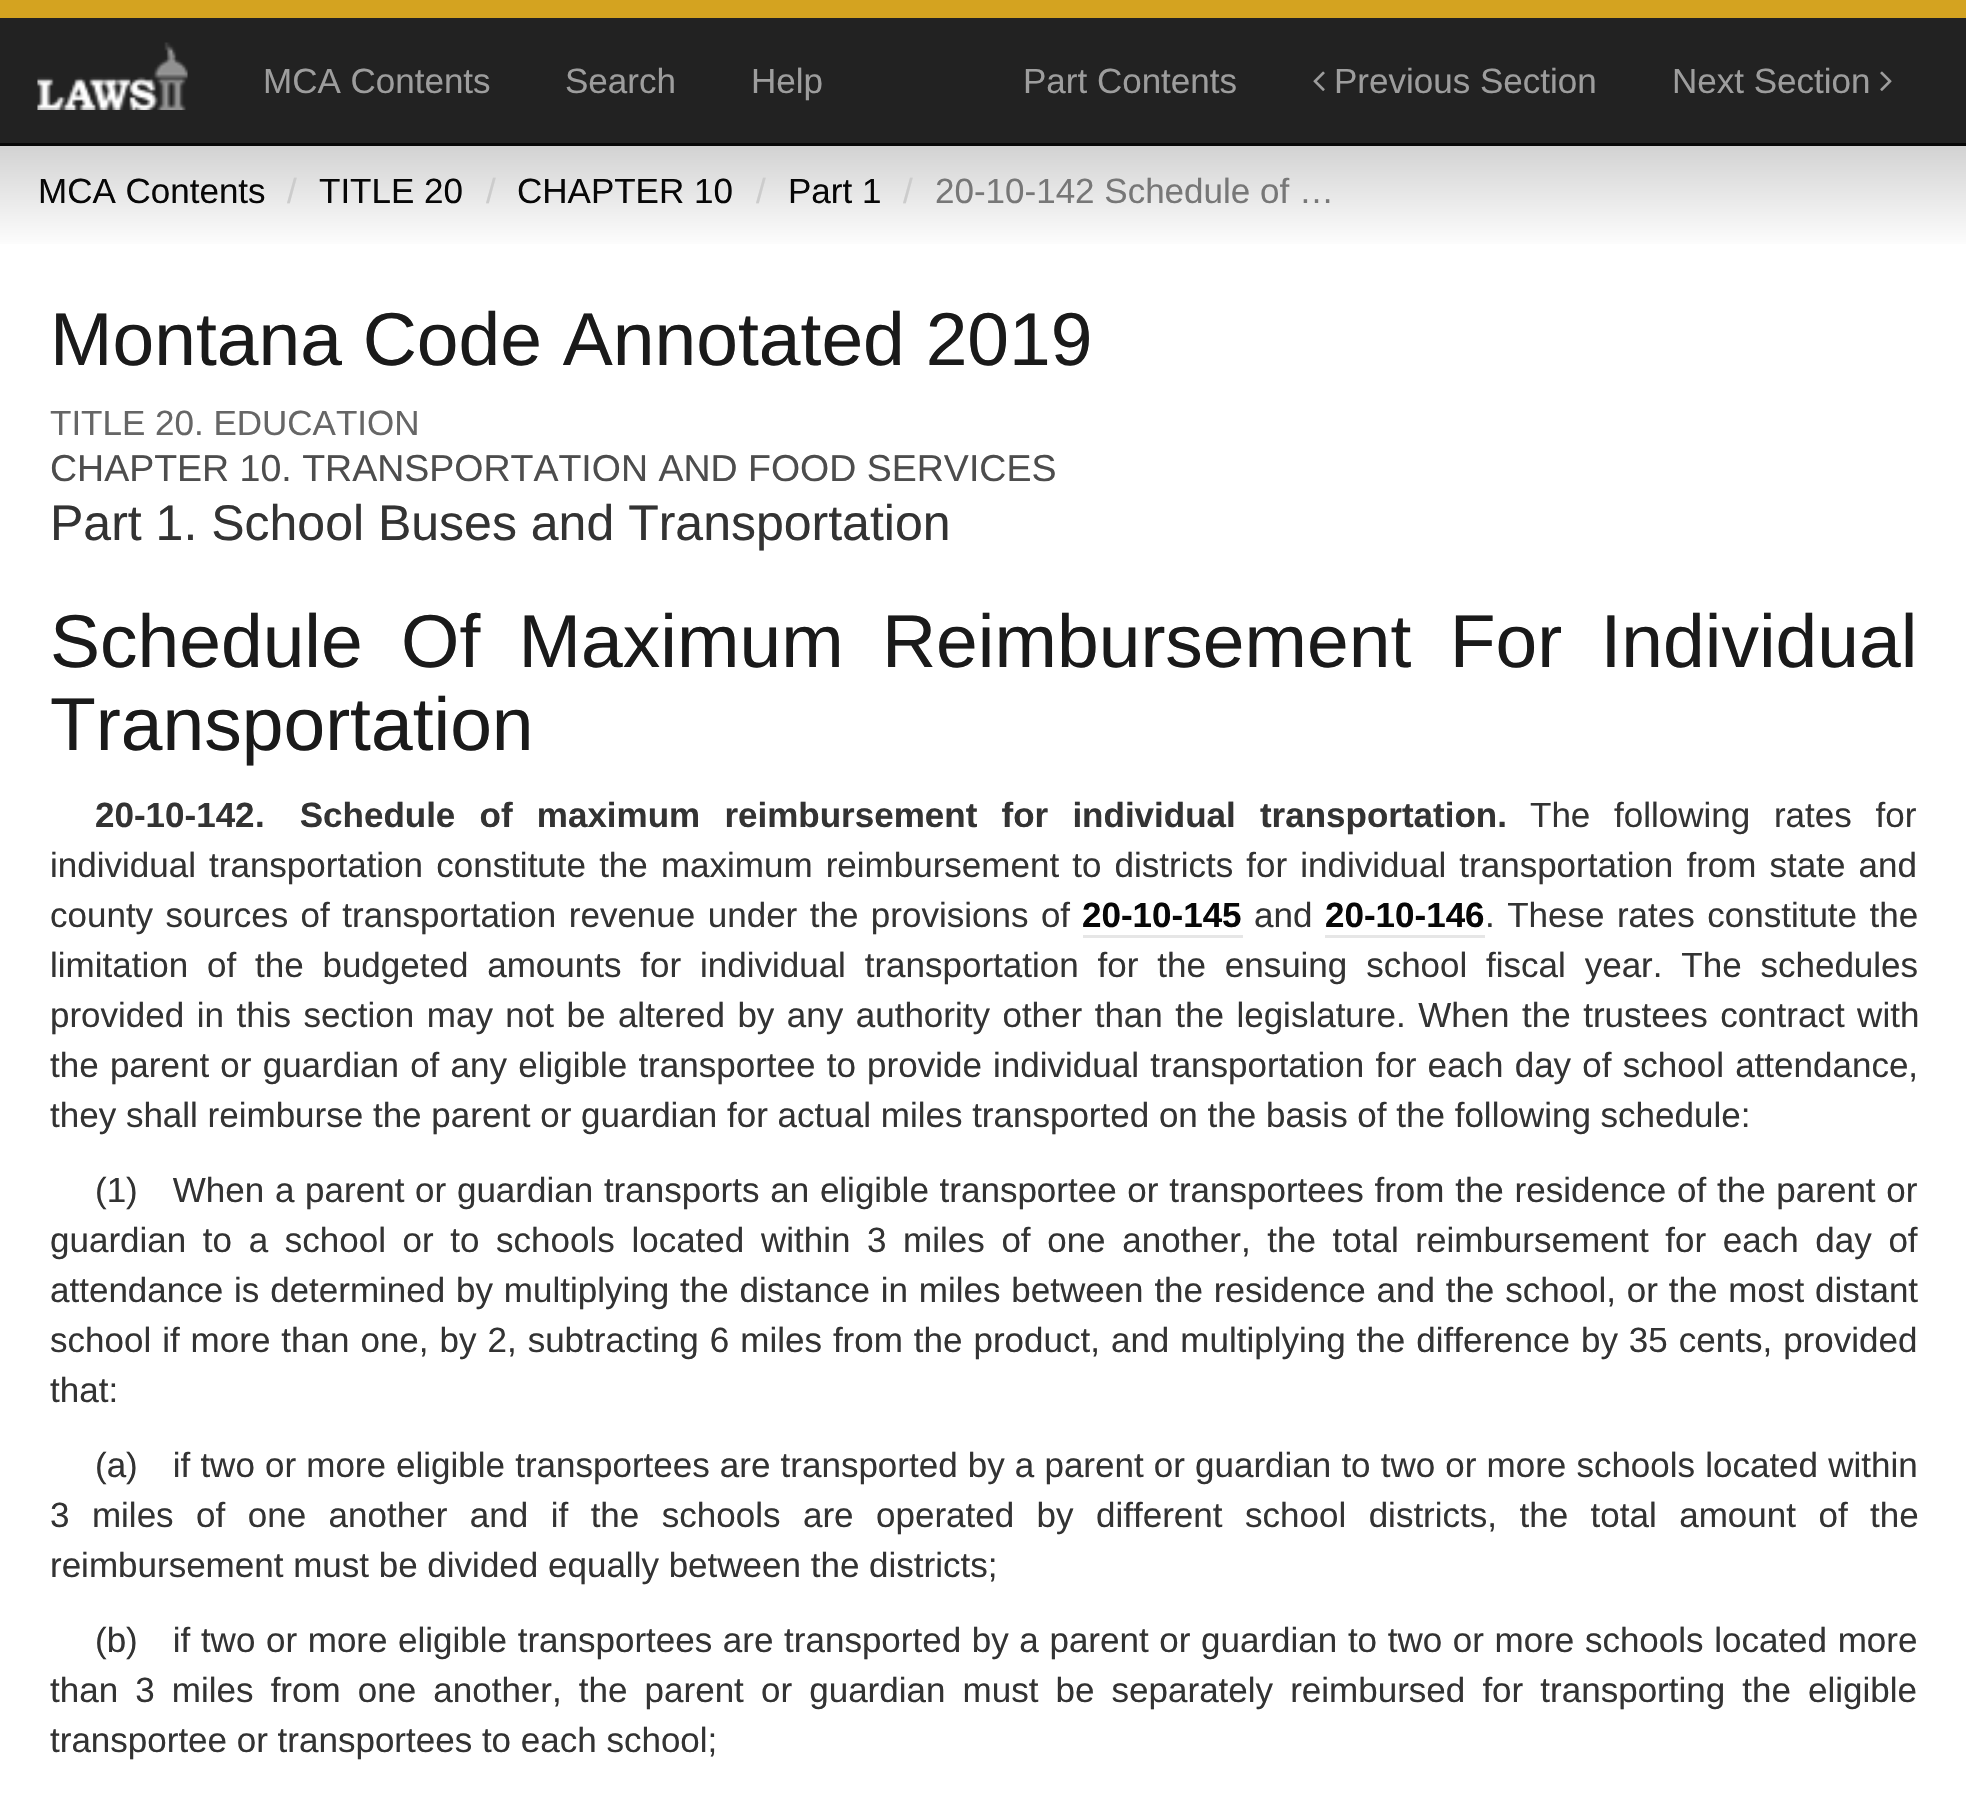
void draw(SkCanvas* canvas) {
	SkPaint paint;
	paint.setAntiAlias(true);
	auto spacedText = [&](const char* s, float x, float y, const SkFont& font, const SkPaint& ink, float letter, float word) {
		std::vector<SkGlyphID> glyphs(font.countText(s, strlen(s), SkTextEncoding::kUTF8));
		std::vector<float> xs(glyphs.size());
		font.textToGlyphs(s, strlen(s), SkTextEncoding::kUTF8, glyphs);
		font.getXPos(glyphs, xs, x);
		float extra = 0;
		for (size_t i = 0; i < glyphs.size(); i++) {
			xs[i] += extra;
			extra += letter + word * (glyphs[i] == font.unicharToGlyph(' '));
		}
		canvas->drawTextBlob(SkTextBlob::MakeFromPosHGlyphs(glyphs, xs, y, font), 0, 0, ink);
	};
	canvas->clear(0xffffffff);
	paint.setColor(0xff222222);
	canvas->drawRect(SkRect::MakeXYWH(0, 18, 1966, 125), paint);
	paint.setColor(0xffd4a320);
	canvas->drawRect(SkRect::MakeXYWH(0, 0, 1966, 18), paint);
	paint.setColor(0xff080808);
	canvas->drawRect(SkRect::MakeXYWH(0, 143, 1966, 3), paint);
	canvas->drawImageRect(SkImages::DeferredFromEncodedData(SkData::MakeFromFileName("img1.png")), SkRect::MakeXYWH(37, 42, 151, 68), SkSamplingOptions());
	SkFont f1(fontMgr->matchFamilyStyle("Liberation Sans", SkFontStyle::Normal()), 35);
	f1.setSubpixel(true);
	paint.setColor(0xff9d9d9d);
	canvas->drawString("MCA Contents", 263, 93, f1, paint);
	canvas->drawString("Search", 565, 93, f1, paint);
	canvas->drawString("Help", 751, 93, f1, paint);
	canvas->drawString("Part Contents", 1023, 93, f1, paint);
	canvas->drawImageRect(SkImages::DeferredFromEncodedData(SkData::MakeFromFileName("img2.png")), SkRect::MakeXYWH(1313, 71, 12, 20), SkSamplingOptions());
	canvas->drawString("Previous Section", 1334, 93, f1, paint);
	canvas->drawString("Next Section", 1672, 93, f1, paint);
	canvas->drawImageRect(SkImages::DeferredFromEncodedData(SkData::MakeFromFileName("img3.png")), SkRect::MakeXYWH(1880, 71, 12, 20), SkSamplingOptions());
	{
		const SkColor colors[] = {0xffd2d2d2, 0xfffefefe};
		const float stops[] = {0, 1};
		const SkPoint ends[] = {{984, 145}, {984, 248}};
		paint.setShader(SkGradientShader::MakeLinear(ends, colors, stops, 2, SkTileMode::kClamp));
		paint.setAlpha(255);
	}
	canvas->drawRect(SkRect::MakeXYWH(0, 146, 1966, 98), paint);
	paint.setShader(nullptr);
	paint.setColor(0xff070707);
	canvas->drawString("MCA Contents", 38, 203, f1, paint);
	paint.setColor(0xffcccccc);
	canvas->drawString("/", 287, 203, f1, paint);
	paint.setColor(0xff070707);
	canvas->drawString("TITLE 20", 319, 203, f1, paint);
	paint.setColor(0xffcccccc);
	canvas->drawString("/", 486, 203, f1, paint);
	paint.setColor(0xff070707);
	canvas->drawString("CHAPTER 10", 517, 203, f1, paint);
	paint.setColor(0xffcccccc);
	canvas->drawString("/", 756, 203, f1, paint);
	paint.setColor(0xff070707);
	canvas->drawString("Part 1", 788, 203, f1, paint);
	paint.setColor(0xffcccccc);
	canvas->drawString("/", 903, 203, f1, paint);
	paint.setColor(0xff777777);
	canvas->drawString("20-10-142 Schedule of …", 935, 203, f1, paint);
	SkFont f2(fontMgr->matchFamilyStyle("Liberation Sans", SkFontStyle::Normal()), 75);
	f2.setSubpixel(true);
	paint.setColor(0xff1a1a1a);
	canvas->drawString("Montana Code Annotated 2019", 50, 365, f2, paint);
	paint.setColor(0xff666666);
	canvas->drawString("TITLE 20. EDUCATION", 50, 435, f1, paint);
	SkFont f3(fontMgr->matchFamilyStyle("Liberation Sans", SkFontStyle::Normal()), 37.5);
	f3.setSubpixel(true);
	paint.setColor(0xff4d4d4d);
	canvas->drawString("CHAPTER 10. TRANSPORTATION AND FOOD SERVICES", 50, 481, f3, paint);
	SkFont f4(fontMgr->matchFamilyStyle("Liberation Sans", SkFontStyle::Normal()), 50);
	f4.setSubpixel(true);
	paint.setColor(0xff333333);
	canvas->drawString("Part 1. School Buses and Transportation", 50, 540, f4, paint);
	paint.setColor(0xff1a1a1a);
	spacedText("Schedule Of Maximum Reimbursement For Individual", 50, 667, f2, paint, 0, 17.5);
	canvas->drawString("Transportation", 50, 750, f2, paint);
	SkFont f5(fontMgr->matchFamilyStyle("Liberation Sans", SkFontStyle::Bold()), 35);
	f5.setSubpixel(true);
	paint.setColor(0xff333333);
	canvas->drawString("20-10-142", 95, 827, f5, paint);
	spacedText(". Schedule of maximum reimbursement for individual transportation.", 255, 827, f5, paint, 0, 14.5);
	spacedText("The following rates for", 1530, 827, f1, paint, 0, 14);
	spacedText("individual transportation constitute the maximum reimbursement to districts for individual transportation from state and", 50, 877, f1, paint, 0, 3.4);
	spacedText("county sources of transportation revenue under the provisions of", 50, 927, f1, paint, 0, 2.75);
	paint.setColor(0xff070707);
	canvas->drawString("20-10-145", 1082, 927, f5, paint);
	paint.setColor(0xffe6e6e6);
	canvas->drawRect(SkRect::MakeXYWH(1083, 935, 160, 3), paint);
	paint.setColor(0xff333333);
	canvas->drawString("and", 1254, 927, f1, paint);
	paint.setColor(0xff070707);
	canvas->drawString("20-10-146", 1325, 927, f5, paint);
	paint.setColor(0xffe6e6e6);
	canvas->drawRect(SkRect::MakeXYWH(1325, 935, 160, 3), paint);
	paint.setColor(0xff333333);
	spacedText(". These rates constitute the", 1485, 927, f1, paint, 0, 2.75);
	spacedText("limitation of the budgeted amounts for individual transportation for the ensuing school fiscal year. The schedules", 50, 977, f1, paint, 0, 9.1);
	spacedText("provided in this section may not be altered by any authority other than the legislature. When the trustees contract with", 50, 1027, f1, paint, 0, 2.75);
	spacedText("the parent or guardian of any eligible transportee to provide individual transportation for each day of school attendance,", 50, 1077, f1, paint, 0, 1.5);
	canvas->drawString("they shall reimburse the parent or guardian for actual miles transported on the basis of the following schedule:", 50, 1127, f1, paint);
	spacedText("(1) When a parent or guardian transports an eligible transportee or transportees from the residence of the parent or", 95, 1202, f1, paint, 0, 1);
	spacedText("guardian to a school or to schools located within 3 miles of one another, the total reimbursement for each day of", 50, 1252, f1, paint, 0, 6.9);
	spacedText("attendance is determined by multiplying the distance in miles between the residence and the school, or the most distant", 50, 1302, f1, paint, 0, 1.1);
	spacedText("school if more than one, by 2, subtracting 6 miles from the product, and multiplying the difference by 35 cents, provided", 50, 1352, f1, paint, 0, 1.25);
	canvas->drawString("that:", 50, 1402, f1, paint);
	spacedText("(a) if two or more eligible transportees are transported by a parent or guardian to two or more schools located within", 95, 1477, f1, paint, 0, 0.4);
	spacedText("3 miles of one another and if the schools are operated by different school districts, the total amount of the", 50, 1527, f1, paint, 0, 12.75);
	canvas->drawString("reimbursement must be divided equally between the districts;", 50, 1577, f1, paint);
	spacedText("(b) if two or more eligible transportees are transported by a parent or guardian to two or more schools located more", 95, 1652, f1, paint, 0, 0.9);
	spacedText("than 3 miles from one another, the parent or guardian must be separately reimbursed for transporting the eligible", 50, 1702, f1, paint, 0, 7.4);
	canvas->drawString("transportee or transportees to each school;", 50, 1752, f1, paint);
}
